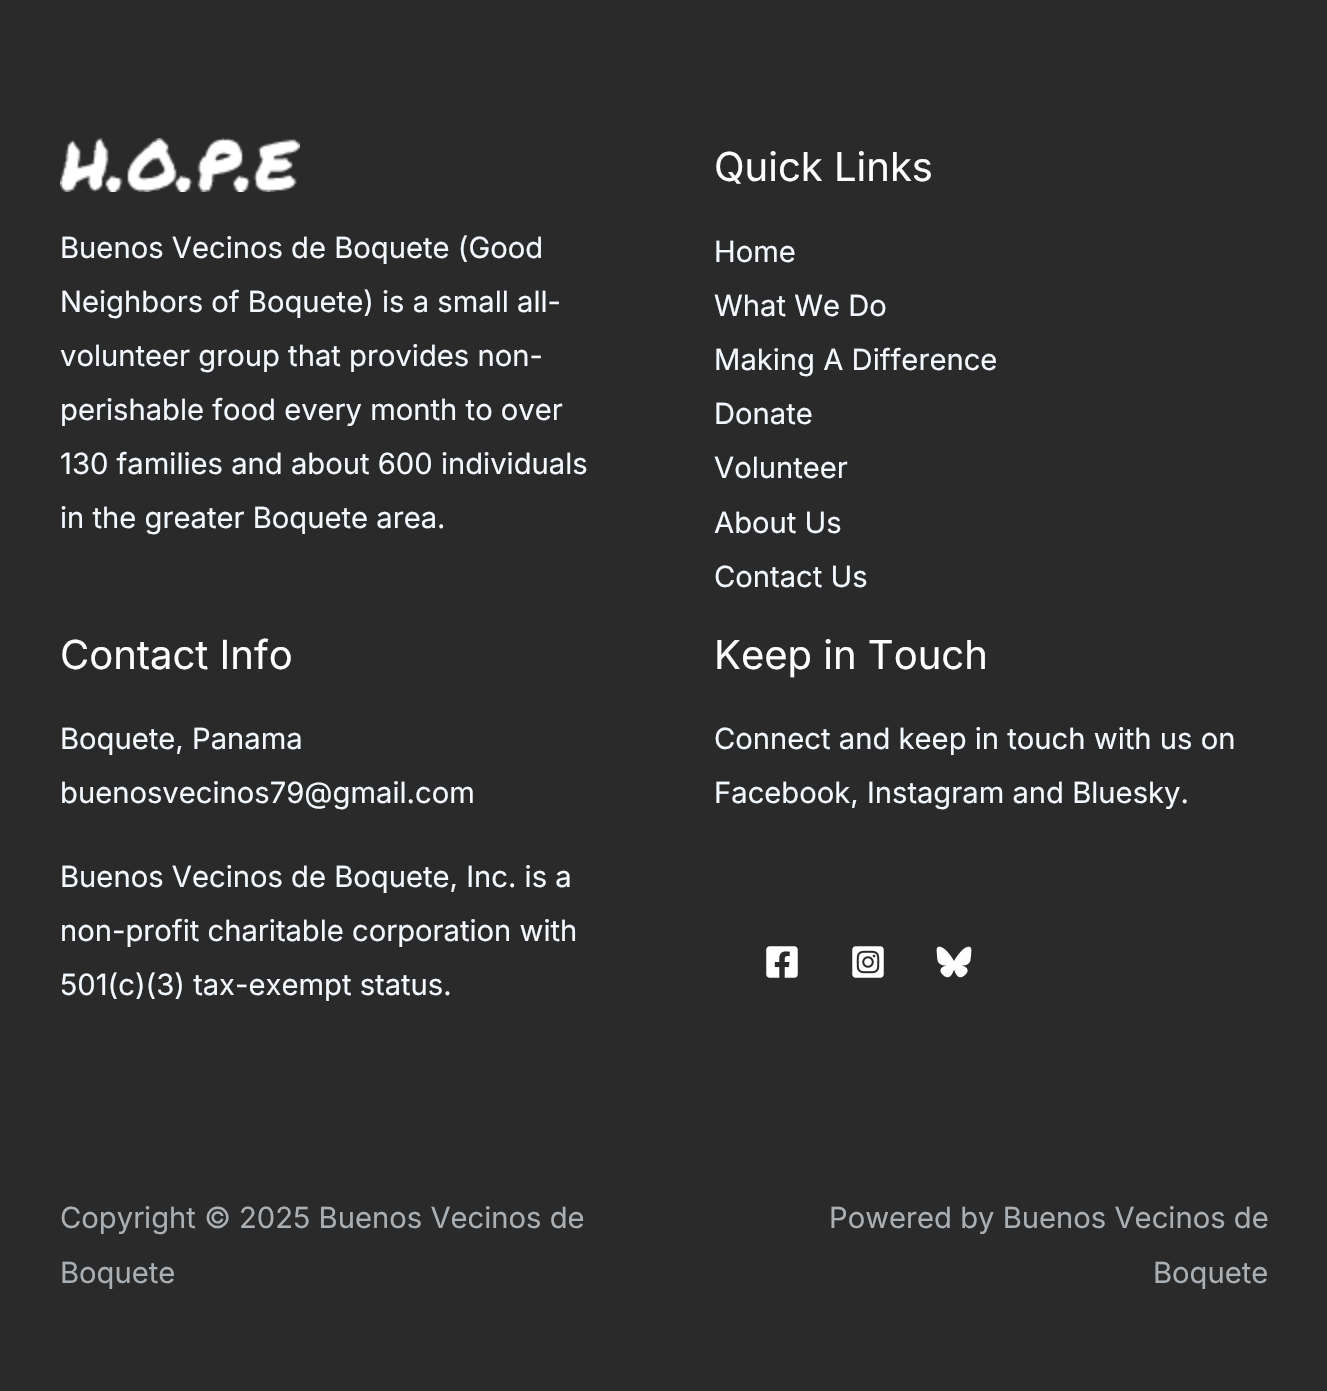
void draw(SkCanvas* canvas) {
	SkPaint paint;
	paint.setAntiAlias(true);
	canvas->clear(0xff2a2a2a);
	canvas->drawImageRect(SkImages::DeferredFromEncodedData(SkData::MakeFromFileName("img1.png")), SkRect::MakeXYWH(60, 138, 240, 54), SkSamplingOptions());
	SkFont f1(fontMgr->matchFamilyStyle("Inter", SkFontStyle::Normal()), 29.2);
	f1.setSubpixel(true);
	paint.setColor(0xfff4f9ff);
	canvas->drawString("Buenos Vecinos de Boquete (Good", 60, 258, f1, paint);
	canvas->drawString("Neighbors of Boquete) is a small all-", 60, 312, f1, paint);
	canvas->drawString("volunteer group that provides non-", 60, 366, f1, paint);
	canvas->drawString("perishable food every month to over", 60, 420, f1, paint);
	canvas->drawString("130 families and about 600 individuals", 60, 474, f1, paint);
	canvas->drawString("in the greater Boquete area.", 60, 528, f1, paint);
	SkFont f2(fontMgr->matchFamilyStyle("Inter", SkFontStyle::Normal()), 40);
	f2.setSubpixel(true);
	paint.setColor(0xffffffff);
	canvas->drawString("Quick Links", 714, 181, f2, paint);
	paint.setColor(0xfff4f9ff);
	canvas->drawString("Home", 714, 262, f1, paint);
	canvas->drawString("What We Do", 714, 316, f1, paint);
	canvas->drawString("Making A Difference", 714, 370, f1, paint);
	canvas->drawString("Donate", 714, 424, f1, paint);
	canvas->drawString("Volunteer", 714, 478, f1, paint);
	canvas->drawString("About Us", 714, 533, f1, paint);
	canvas->drawString("Contact Us", 714, 587, f1, paint);
	paint.setColor(0xffffffff);
	canvas->drawString("Contact Info", 60, 669, f2, paint);
	paint.setColor(0xfff4f9ff);
	canvas->drawString("Boquete, Panama", 60, 749, f1, paint);
	canvas->drawString("buenosvecinos79@gmail.com", 60, 803, f1, paint);
	canvas->drawString("Buenos Vecinos de Boquete, Inc. is a", 60, 887, f1, paint);
	canvas->drawString("non-profit charitable corporation with", 60, 941, f1, paint);
	canvas->drawString("501(c)(3) tax-exempt status.", 60, 995, f1, paint);
	paint.setColor(0xffffffff);
	canvas->drawString("Keep in Touch", 714, 669, f2, paint);
	paint.setColor(0xfff4f9ff);
	canvas->drawString("Connect and keep in touch with us on", 714, 749, f1, paint);
	canvas->drawString("Facebook, Instagram and Bluesky.", 714, 803, f1, paint);
	canvas->drawImageRect(SkImages::DeferredFromEncodedData(SkData::MakeFromFileName("img2.png")), SkRect::MakeXYWH(766, 946, 32, 32), SkSamplingOptions());
	canvas->drawImageRect(SkImages::DeferredFromEncodedData(SkData::MakeFromFileName("img3.png")), SkRect::MakeXYWH(852, 946, 32, 32), SkSamplingOptions());
	canvas->drawImageRect(SkImages::DeferredFromEncodedData(SkData::MakeFromFileName("img4.png")), SkRect::MakeXYWH(936, 946, 36, 32), SkSamplingOptions());
	paint.setColor(0xffaaafb4);
	canvas->drawString("Copyright © 2025 Buenos Vecinos de", 60, 1228, f1, paint);
	canvas->drawString("Boquete", 60, 1283, f1, paint);
	canvas->drawString("Powered by Buenos Vecinos de", 829, 1228, f1, paint);
	canvas->drawString("Boquete", 1153, 1283, f1, paint);
}
